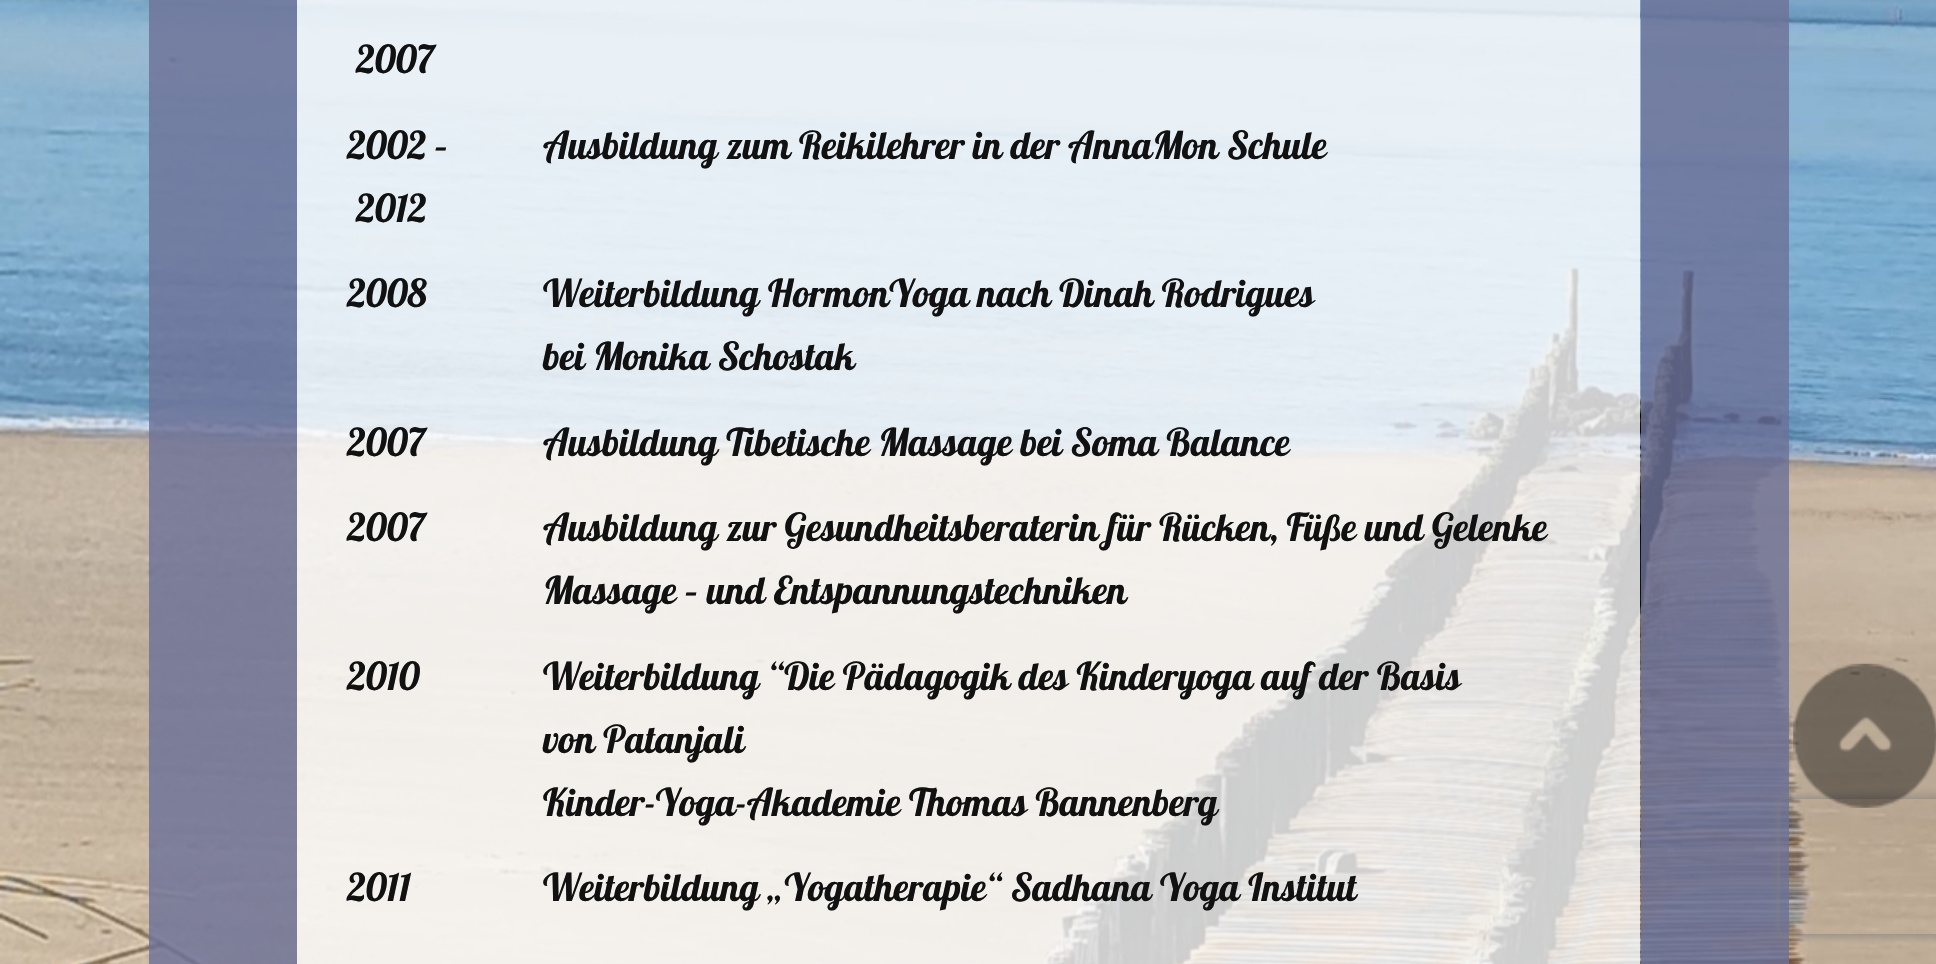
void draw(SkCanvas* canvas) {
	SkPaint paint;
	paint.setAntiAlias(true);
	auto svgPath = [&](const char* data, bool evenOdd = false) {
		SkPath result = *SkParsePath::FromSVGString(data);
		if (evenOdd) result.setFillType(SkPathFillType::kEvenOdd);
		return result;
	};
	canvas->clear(0xffffffff);
	canvas->drawImageRect(SkImages::DeferredFromEncodedData(SkData::MakeFromFileName("img1.png")), SkRect::MakeXYWH(0, 0, 1936, 964), SkSamplingOptions());
	paint.setColor(0xd16d7197);
	canvas->drawRect(SkRect::MakeXYWH(149, 0, 1640, 964), paint);
	canvas->drawImageRect(SkImages::DeferredFromEncodedData(SkData::MakeFromFileName("img2.png")), SkRect::MakeXYWH(297, 0, 1344, 964), SkSamplingOptions());
	SkFont f1(fontMgr->matchFamilyStyle("Pattaya", SkFontStyle::Normal()), 38.25);
	f1.setSubpixel(true);
	paint.setColor(0xff111111);
	canvas->drawString("2007", 356, 73, f1, paint);
	canvas->drawString("2002 –", 347, 159, f1, paint);
	canvas->drawString("2012", 356, 222, f1, paint);
	canvas->drawString("Ausbildung zum Reikilehrer in der AnnaMon Schule", 543, 159, f1, paint);
	canvas->drawString("2008", 347, 307, f1, paint);
	canvas->drawString("Weiterbildung HormonYoga nach Dinah Rodrigues", 543, 307, f1, paint);
	canvas->drawString("bei Monika Schostak", 543, 370, f1, paint);
	canvas->drawString("2007", 347, 456, f1, paint);
	canvas->drawString("Ausbildung Tibetische Massage bei Soma Balance", 543, 456, f1, paint);
	canvas->drawString("2007", 347, 541, f1, paint);
	canvas->drawString("Ausbildung zur Gesundheitsberaterin für Rücken, Füße und Gelenke", 543, 541, f1, paint);
	canvas->drawString("Massage – und Entspannungstechniken", 543, 604, f1, paint);
	canvas->drawString("2010", 347, 690, f1, paint);
	canvas->drawString("Weiterbildung “Die Pädagogik des Kinderyoga auf der Basis", 543, 690, f1, paint);
	canvas->drawString("von Patanjali", 543, 753, f1, paint);
	canvas->drawString("Kinder-Yoga-Akademie Thomas Bannenberg", 543, 816, f1, paint);
	canvas->drawString("2011", 347, 901, f1, paint);
	canvas->drawString("Weiterbildung „Yogatherapie“ Sadhana Yoga Institut", 543, 901, f1, paint);
	canvas->save();
	canvas->clipPath(svgPath("M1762 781H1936V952H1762ZM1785 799H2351C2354 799 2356 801 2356 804V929C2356 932 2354 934 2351 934H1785C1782 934 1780 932 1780 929V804C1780 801 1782 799 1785 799Z", true), true);
	paint.setColor(0xff808080);
	paint.setMaskFilter(SkMaskFilter::MakeBlur(kNormal_SkBlurStyle, 5.5));
	canvas->drawRoundRect(SkRect::MakeXYWH(1780, 799, 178, 135), 5, 5, paint);
	paint.setMaskFilter(nullptr);
	canvas->restore();
	canvas->drawImageRect(SkImages::DeferredFromEncodedData(SkData::MakeFromFileName("img3.png")), SkRect::MakeXYWH(1793, 663, 143, 145), SkSamplingOptions());
}
